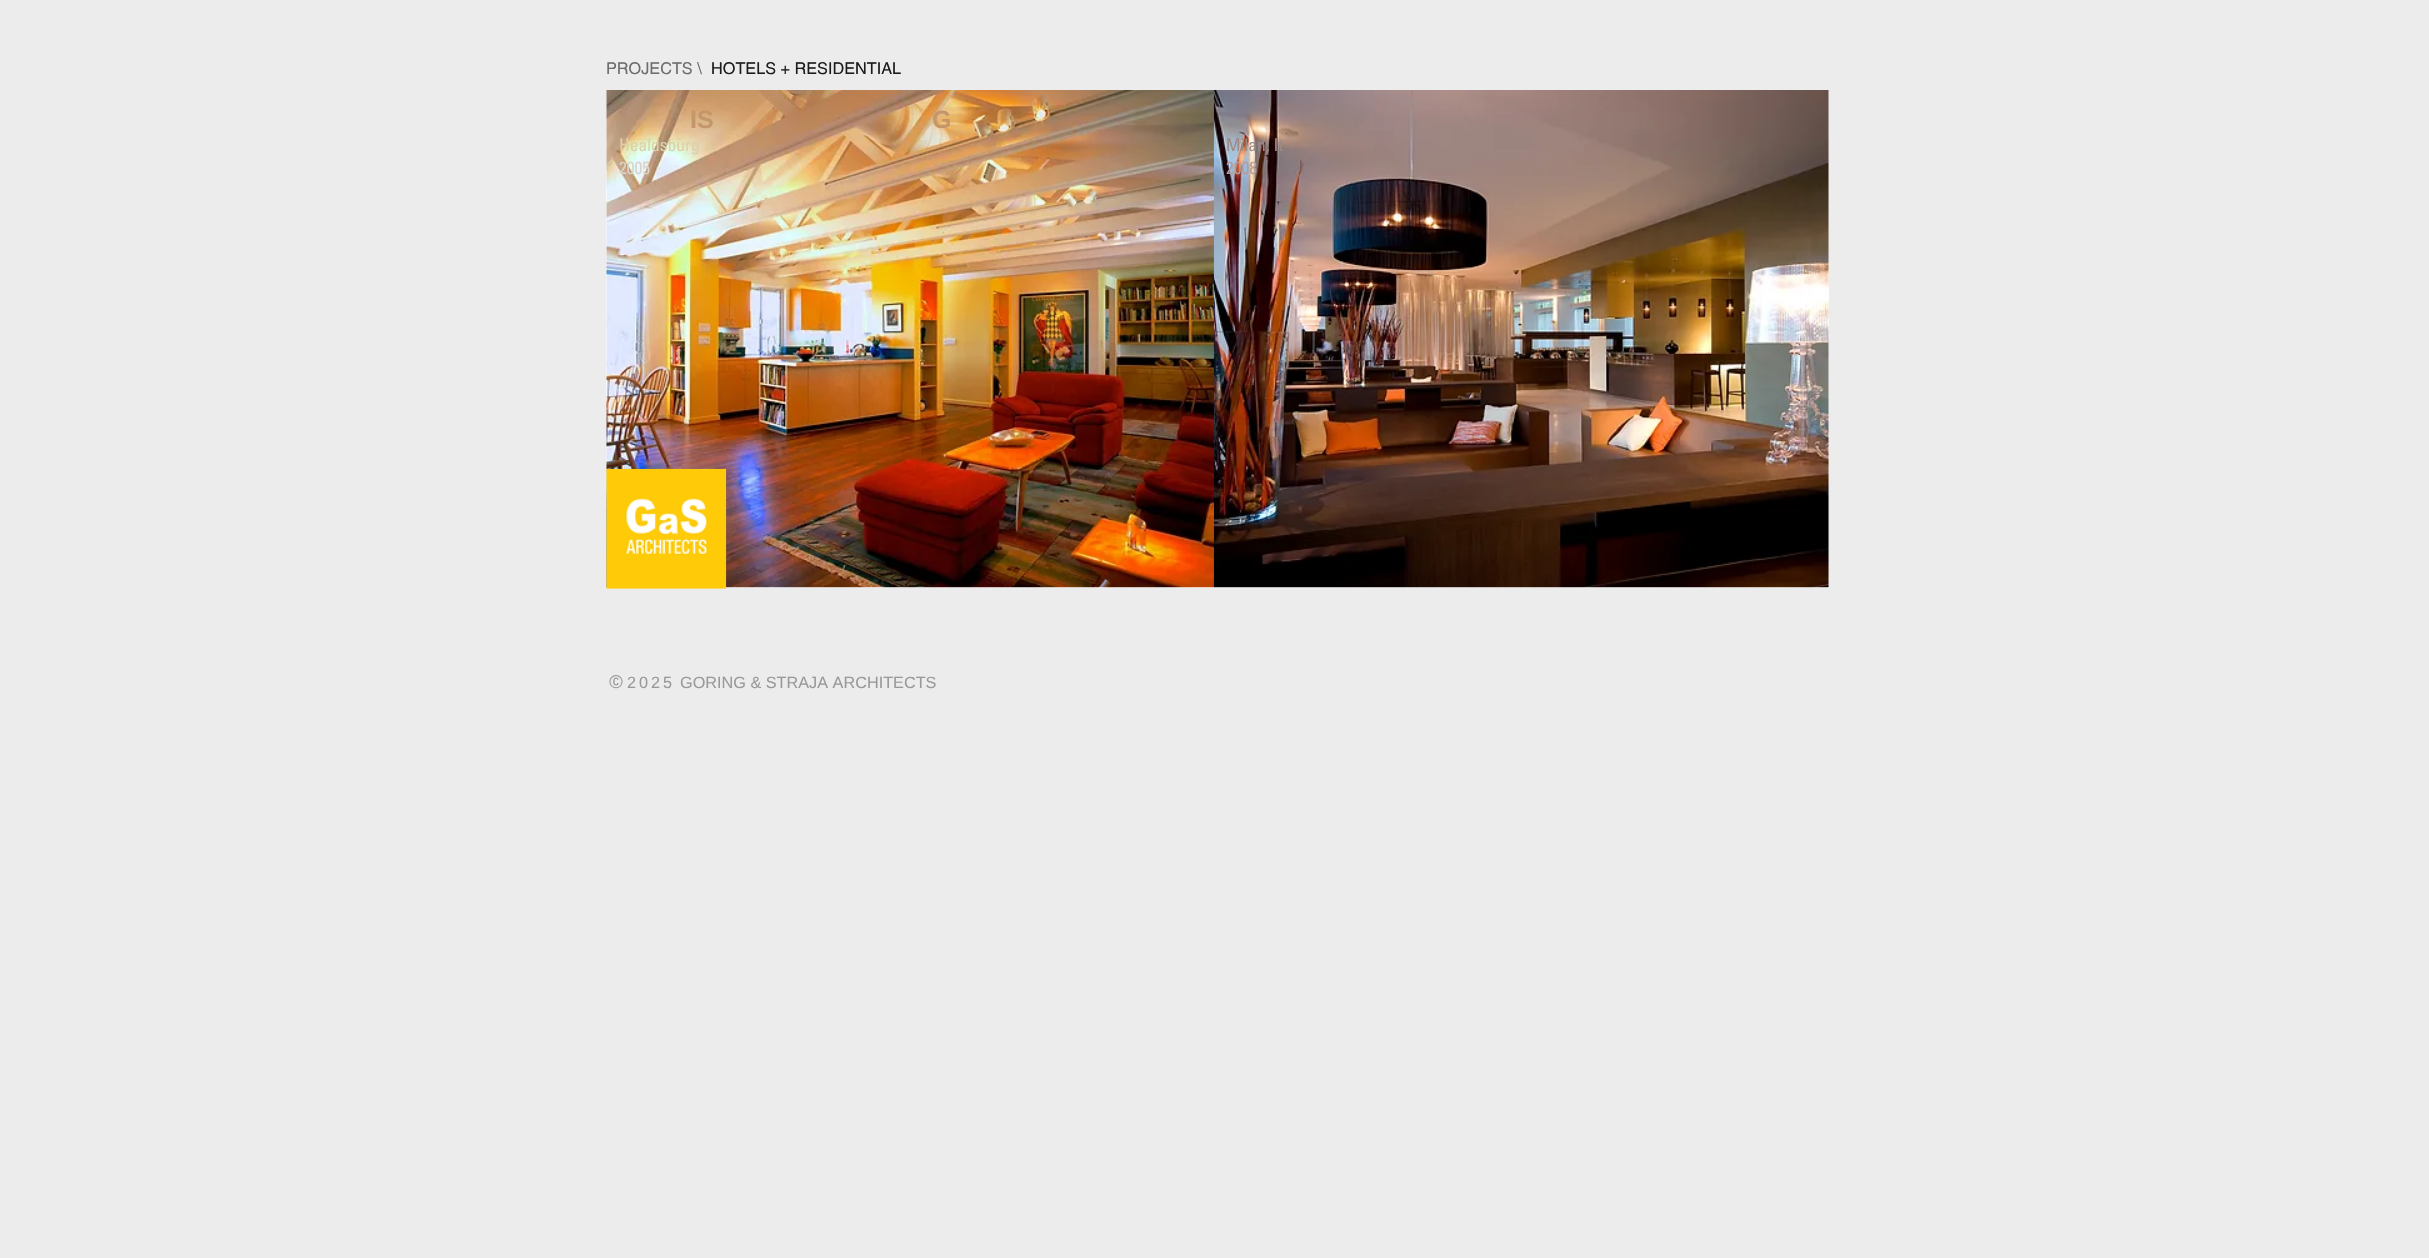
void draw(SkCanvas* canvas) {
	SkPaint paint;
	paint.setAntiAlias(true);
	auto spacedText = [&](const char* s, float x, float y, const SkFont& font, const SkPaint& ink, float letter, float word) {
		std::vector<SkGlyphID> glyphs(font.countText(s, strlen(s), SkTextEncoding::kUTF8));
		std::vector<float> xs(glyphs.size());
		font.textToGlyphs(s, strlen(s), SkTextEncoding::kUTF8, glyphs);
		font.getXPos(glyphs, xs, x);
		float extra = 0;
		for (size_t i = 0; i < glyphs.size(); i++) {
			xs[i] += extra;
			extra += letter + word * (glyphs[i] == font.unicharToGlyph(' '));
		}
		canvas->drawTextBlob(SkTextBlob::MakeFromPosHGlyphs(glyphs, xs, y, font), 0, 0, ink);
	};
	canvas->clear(0xffececec);
	SkFont f1(fontMgr->matchFamilyStyle("helvetica", SkFontStyle::Normal()), 16.25);
	f1.setSubpixel(true);
	paint.setColor(0xff6d6d6d);
	canvas->drawString("PROJECTS \\", 606, 74, f1, paint);
	paint.setColor(0xff1c1c1c);
	canvas->drawString("HOTELS + RESIDENTIAL", 711, 74, f1, paint);
	paint.setColor(0xffffffff);
	canvas->drawRect(SkRect::MakeXYWH(606, 90, 1223, 498), paint);
	canvas->drawImageRect(SkImages::DeferredFromEncodedData(SkData::MakeFromFileName("img1.png")), SkRect::MakeXYWH(606, 90, 608, 498), SkSamplingOptions());
	SkFont f2(fontMgr->matchFamilyStyle("Liberation Sans", SkFontStyle::Bold()), 25);
	f2.setSubpixel(true);
	paint.setColor(0xffc49669);
	canvas->drawString("IS", 690, 128, f2, paint);
	canvas->drawString("G", 932, 128, f2, paint);
	SkFont f3(fontMgr->matchFamilyStyle("Univers", SkFontStyle::Normal()), 17.5);
	f3.setSubpixel(true);
	paint.setColor(0xffdbd2ab);
	canvas->drawString("Healdsburg", 619, 151, f3, paint);
	paint.setColor(0xffd9d5c8);
	canvas->drawString("2005", 619, 174, f3, paint);
	canvas->drawImageRect(SkImages::DeferredFromEncodedData(SkData::MakeFromFileName("img2.png")), SkRect::MakeXYWH(1213, 90, 616, 498), SkSamplingOptions());
	paint.setColor(0xff9c8a87);
	canvas->drawString("Milan, It", 1226, 151, f3, paint);
	paint.setColor(0xffb09d9d);
	canvas->drawString("2008", 1226, 174, f3, paint);
	canvas->drawImageRect(SkImages::DeferredFromEncodedData(SkData::MakeFromFileName("img3.png")), SkRect::MakeXYWH(606, 468, 121, 121), SkSamplingOptions());
	paint.setColor(0xff999999);
	canvas->drawString("©", 609, 688, f3, paint);
	SkFont f4(fontMgr->matchFamilyStyle("Liberation Sans", SkFontStyle::Normal()), 16.25);
	f4.setSubpixel(true);
	spacedText("2025", 627, 688, f4, paint, 3, 0);
	canvas->drawString("GORING & STRAJA ARCHITECTS", 680, 688, f4, paint);
}
